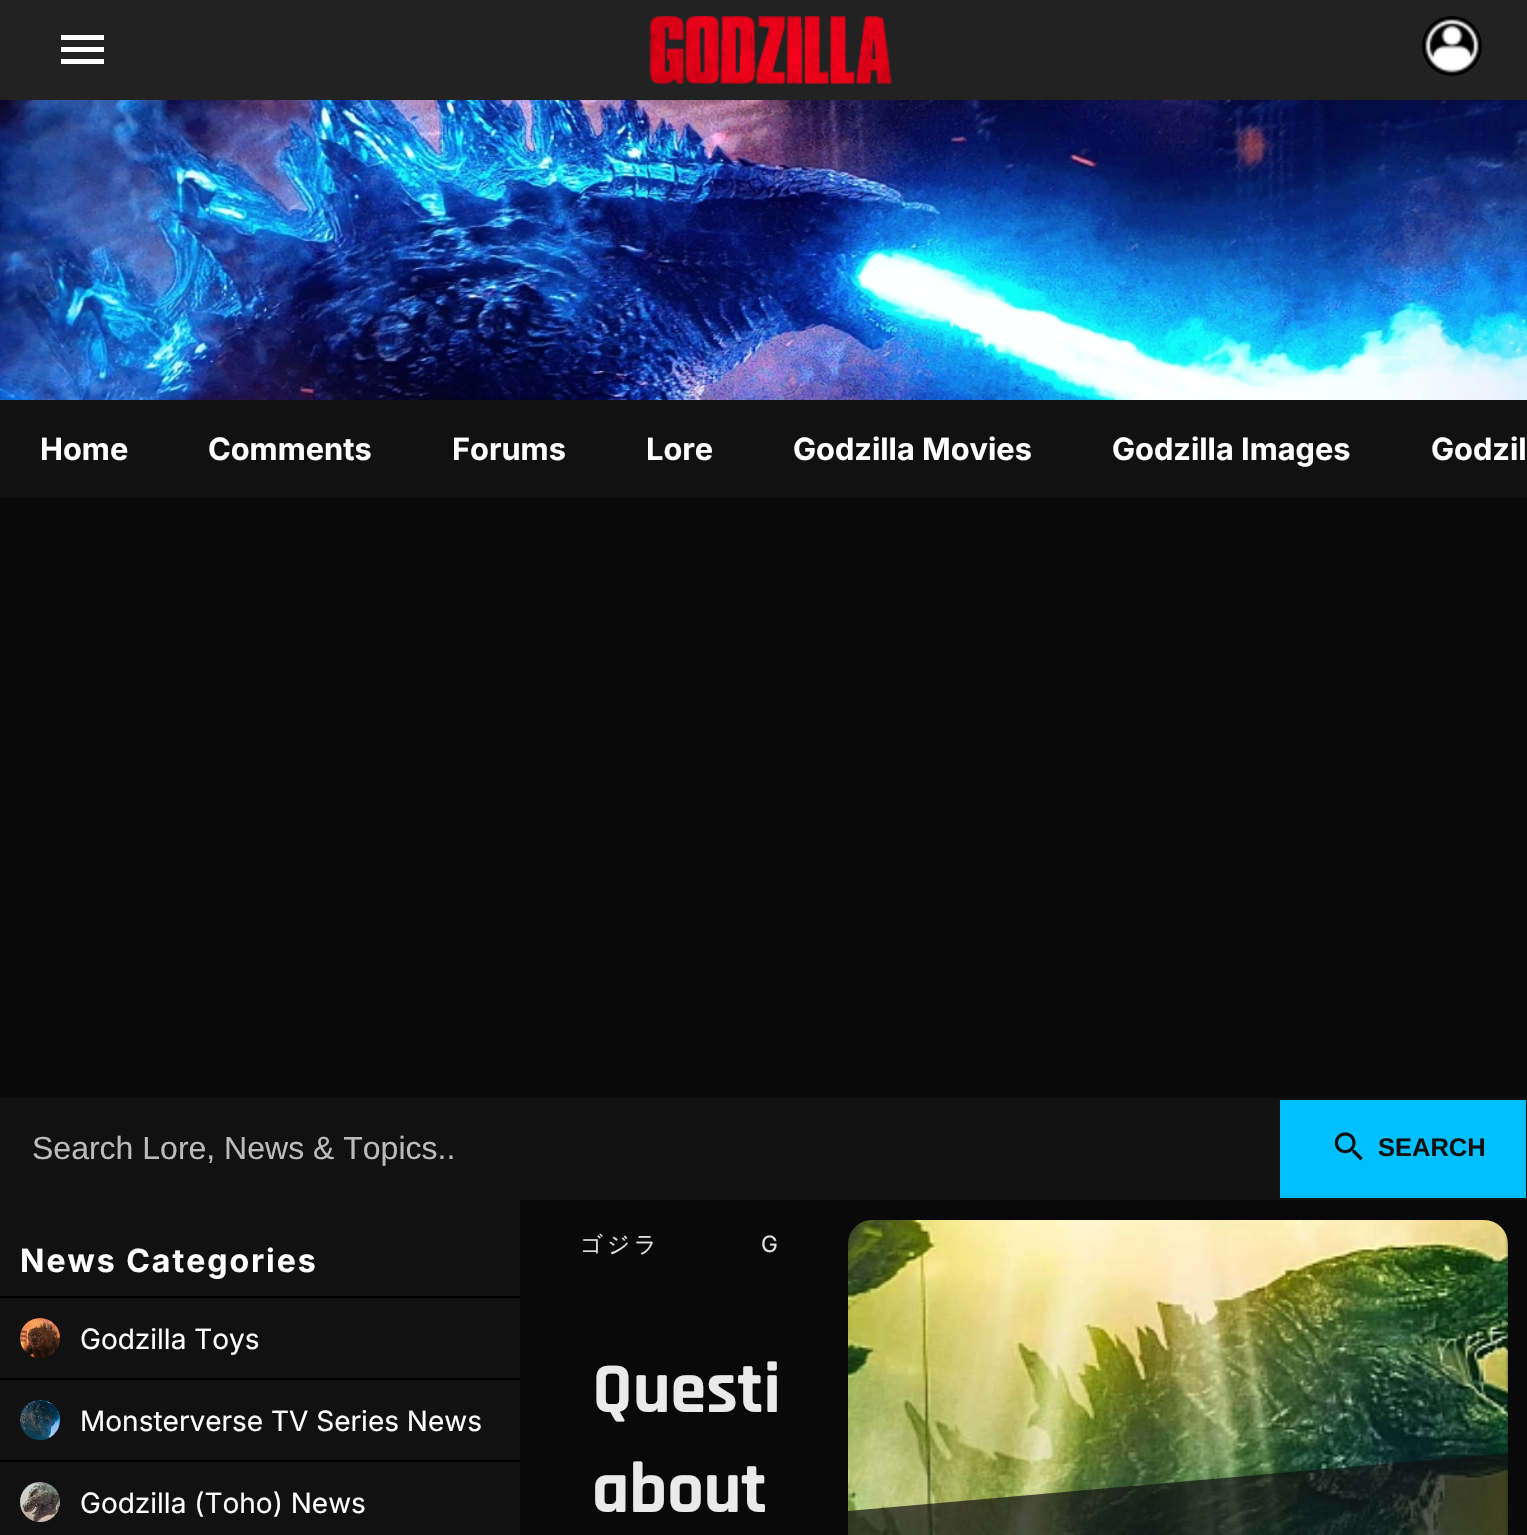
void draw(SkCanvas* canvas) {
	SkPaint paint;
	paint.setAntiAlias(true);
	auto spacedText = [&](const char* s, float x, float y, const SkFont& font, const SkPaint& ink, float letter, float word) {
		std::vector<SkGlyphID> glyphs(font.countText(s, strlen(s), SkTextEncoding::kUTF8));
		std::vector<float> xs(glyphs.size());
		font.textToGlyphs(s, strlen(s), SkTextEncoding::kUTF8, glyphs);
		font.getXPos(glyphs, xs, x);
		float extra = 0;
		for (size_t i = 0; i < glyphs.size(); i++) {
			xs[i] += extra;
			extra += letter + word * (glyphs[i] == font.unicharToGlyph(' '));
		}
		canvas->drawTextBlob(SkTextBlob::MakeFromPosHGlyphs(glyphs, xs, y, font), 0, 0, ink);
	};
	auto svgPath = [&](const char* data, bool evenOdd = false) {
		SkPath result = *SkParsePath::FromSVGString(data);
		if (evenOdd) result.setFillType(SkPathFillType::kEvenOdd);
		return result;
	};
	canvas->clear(0xff090909);
	paint.setColor(0xff222222);
	canvas->drawRect(SkRect::MakeXYWH(0, 0, 1527, 100), paint);
	paint.setColor(0xffffffff);
	canvas->drawPath(svgPath("M61 35H104V40H61ZM61 52V47H104V52ZM61 64V59H104V64Z"), paint);
	canvas->drawImageRect(SkImages::DeferredFromEncodedData(SkData::MakeFromFileName("img1.png")), SkRect::MakeXYWH(649, 16, 244, 68), SkSamplingOptions());
	canvas->drawImageRect(SkImages::DeferredFromEncodedData(SkData::MakeFromFileName("img2.png")), SkRect::MakeXYWH(1422, 16, 60, 60), SkSamplingOptions());
	canvas->drawImageRect(SkImages::DeferredFromEncodedData(SkData::MakeFromFileName("img3.png")), SkRect::MakeXYWH(0, 100, 1527, 300), SkSamplingOptions());
	paint.setColor(0xff111111);
	canvas->drawRect(SkRect::MakeXYWH(0, 400, 1527, 98), paint);
	SkFont f1(fontMgr->matchFamilyStyle("Inter", SkFontStyle::Bold()), 30.75);
	f1.setSubpixel(true);
	paint.setColor(0xffffffff);
	canvas->drawString("Home", 40, 460, f1, paint);
	canvas->drawString("Comments", 208, 460, f1, paint);
	canvas->drawString("Forums", 452, 460, f1, paint);
	canvas->drawString("Lore", 646, 460, f1, paint);
	canvas->drawString("Godzilla Movies", 793, 460, f1, paint);
	canvas->drawString("Godzilla Images", 1112, 460, f1, paint);
	canvas->drawString("Godzil", 1431, 460, f1, paint);
	paint.setColor(0xff111111);
	canvas->drawRect(SkRect::MakeXYWH(0, 1098, 1527, 102), paint);
	SkFont f2(fontMgr->matchFamilyStyle("Liberation Sans", SkFontStyle::Normal()), 32);
	f2.setSubpixel(true);
	paint.setColor(0xffbbbbbb);
	canvas->drawString("Search Lore, News & Topics..", 32, 1159, f2, paint);
	paint.setColor(0xff00bfff);
	canvas->drawRect(SkRect::MakeXYWH(1280, 1100, 246, 98), paint);
	canvas->drawImageRect(SkImages::DeferredFromEncodedData(SkData::MakeFromFileName("img4.png")), SkRect::MakeXYWH(1334, 1132, 29, 29), SkSamplingOptions());
	SkFont f3(fontMgr->matchFamilyStyle("Liberation Sans", SkFontStyle::Bold()), 25.5);
	f3.setSubpixel(true);
	paint.setColor(0xff111111);
	canvas->drawString("SEARCH", 1378, 1156, f3, paint);
	canvas->drawRect(SkRect::MakeXYWH(0, 1200, 520, 335), paint);
	SkFont f4(fontMgr->matchFamilyStyle("Inter", SkFontStyle::Bold()), 32);
	f4.setSubpixel(true);
	paint.setColor(0xffffffff);
	spacedText("News Categories", 20, 1272, f4, paint, 2, 0);
	paint.setColor(0xff010101);
	canvas->drawRect(SkRect::MakeXYWH(0, 1296, 520, 2), paint);
	canvas->drawImageRect(SkImages::DeferredFromEncodedData(SkData::MakeFromFileName("img5.png")), SkRect::MakeXYWH(20, 1318, 40, 40), SkSamplingOptions());
	SkFont f5(fontMgr->matchFamilyStyle("Inter", SkFontStyle::Normal()), 28);
	f5.setSubpixel(true);
	paint.setColor(0xffffffff);
	canvas->drawString("Godzilla Toys", 80, 1349, f5, paint);
	paint.setColor(0xff010101);
	canvas->drawRect(SkRect::MakeXYWH(0, 1378, 520, 2), paint);
	canvas->drawImageRect(SkImages::DeferredFromEncodedData(SkData::MakeFromFileName("img6.png")), SkRect::MakeXYWH(20, 1400, 40, 40), SkSamplingOptions());
	paint.setColor(0xffffffff);
	canvas->drawString("Monsterverse TV Series News", 80, 1431, f5, paint);
	paint.setColor(0xff010101);
	canvas->drawRect(SkRect::MakeXYWH(0, 1460, 520, 2), paint);
	canvas->drawImageRect(SkImages::DeferredFromEncodedData(SkData::MakeFromFileName("img7.png")), SkRect::MakeXYWH(20, 1482, 40, 40), SkSamplingOptions());
	paint.setColor(0xffffffff);
	canvas->drawString("Godzilla (Toho) News", 80, 1513, f5, paint);
	SkFont f6(fontMgr->matchFamilyStyle("WenQuanYi Zen Hei", SkFontStyle(500, SkFontStyle::kNormal_Width, SkFontStyle::kUpright_Slant)), 22.5);
	f6.setSubpixel(true);
	paint.setColor(0xffe1e1e1);
	spacedText("ゴジラ", 580, 1252, f6, paint, 4, 0);
	SkFont f7(fontMgr->matchFamilyStyle("Inter", SkFontStyle::Normal()), 22.5);
	f7.setSubpixel(true);
	spacedText("G", 761, 1252, f7, paint, 4, 0);
	SkFont f8(fontMgr->matchFamilyStyle("Rajdhani", SkFontStyle::Bold()), 72);
	f8.setSubpixel(true);
	paint.setColor(0xffeaeaea);
	canvas->drawString("Questi", 592, 1412, f8, paint);
	canvas->drawString("about", 592, 1512, f8, paint);
	canvas->drawImageRect(SkImages::DeferredFromEncodedData(SkData::MakeFromFileName("img8.png")), SkRect::MakeXYWH(848, 1220, 660, 315), SkSamplingOptions());
	paint.setColor(0xb3111111);
	canvas->drawPath(svgPath("M848 1511V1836C848 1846 855 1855 864 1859L1508 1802V1453Z"), paint);
}
